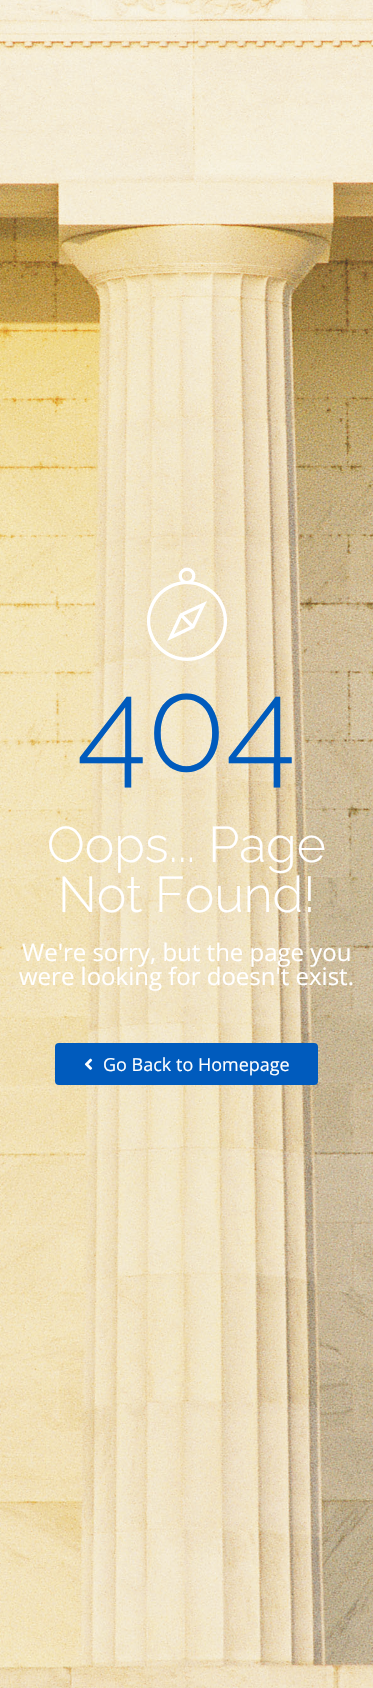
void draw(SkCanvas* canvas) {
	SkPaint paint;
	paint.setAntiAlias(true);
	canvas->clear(0xffffffff);
	canvas->drawImageRect(SkImages::DeferredFromEncodedData(SkData::MakeFromFileName("img1.png")), SkRect::MakeXYWH(0, 0, 373, 1688), SkSamplingOptions());
	canvas->drawImageRect(SkImages::DeferredFromEncodedData(SkData::MakeFromFileName("img2.png")), SkRect::MakeXYWH(147, 567, 80, 94), SkSamplingOptions());
	SkFont f1(fontMgr->matchFamilyStyle("Raleway", SkFontStyle(300, SkFontStyle::kNormal_Width, SkFontStyle::kUpright_Slant)), 130);
	f1.setSubpixel(true);
	paint.setColor(0xff005bbd);
	canvas->drawString("404", 77, 771, f1, paint);
	SkFont f2(fontMgr->matchFamilyStyle("Raleway", SkFontStyle(300, SkFontStyle::kNormal_Width, SkFontStyle::kUpright_Slant)), 50);
	f2.setSubpixel(true);
	paint.setColor(0xffffffff);
	canvas->drawString("Oops... Page", 47, 862, f2, paint);
	canvas->drawString("Not Found!", 58, 912, f2, paint);
	SkFont f3(fontMgr->matchFamilyStyle("Open Sans", SkFontStyle::Normal()), 24);
	f3.setSubpixel(true);
	canvas->drawString("We're sorry, but the page you", 22, 961, f3, paint);
	canvas->drawString("were looking for doesn't exist.", 19, 985, f3, paint);
	paint.setColor(0xff005bbd);
	canvas->drawRoundRect(SkRect::MakeXYWH(55, 1043, 263, 42), 4, 4, paint);
	canvas->drawImageRect(SkImages::DeferredFromEncodedData(SkData::MakeFromFileName("img3.png")), SkRect::MakeXYWH(84, 1058, 9, 12), SkSamplingOptions());
	SkFont f4(fontMgr->matchFamilyStyle("Open Sans", SkFontStyle::Normal()), 18);
	f4.setSubpixel(true);
	paint.setColor(0xffffffff);
	canvas->drawString("Go Back to Homepage", 103, 1071, f4, paint);
}
